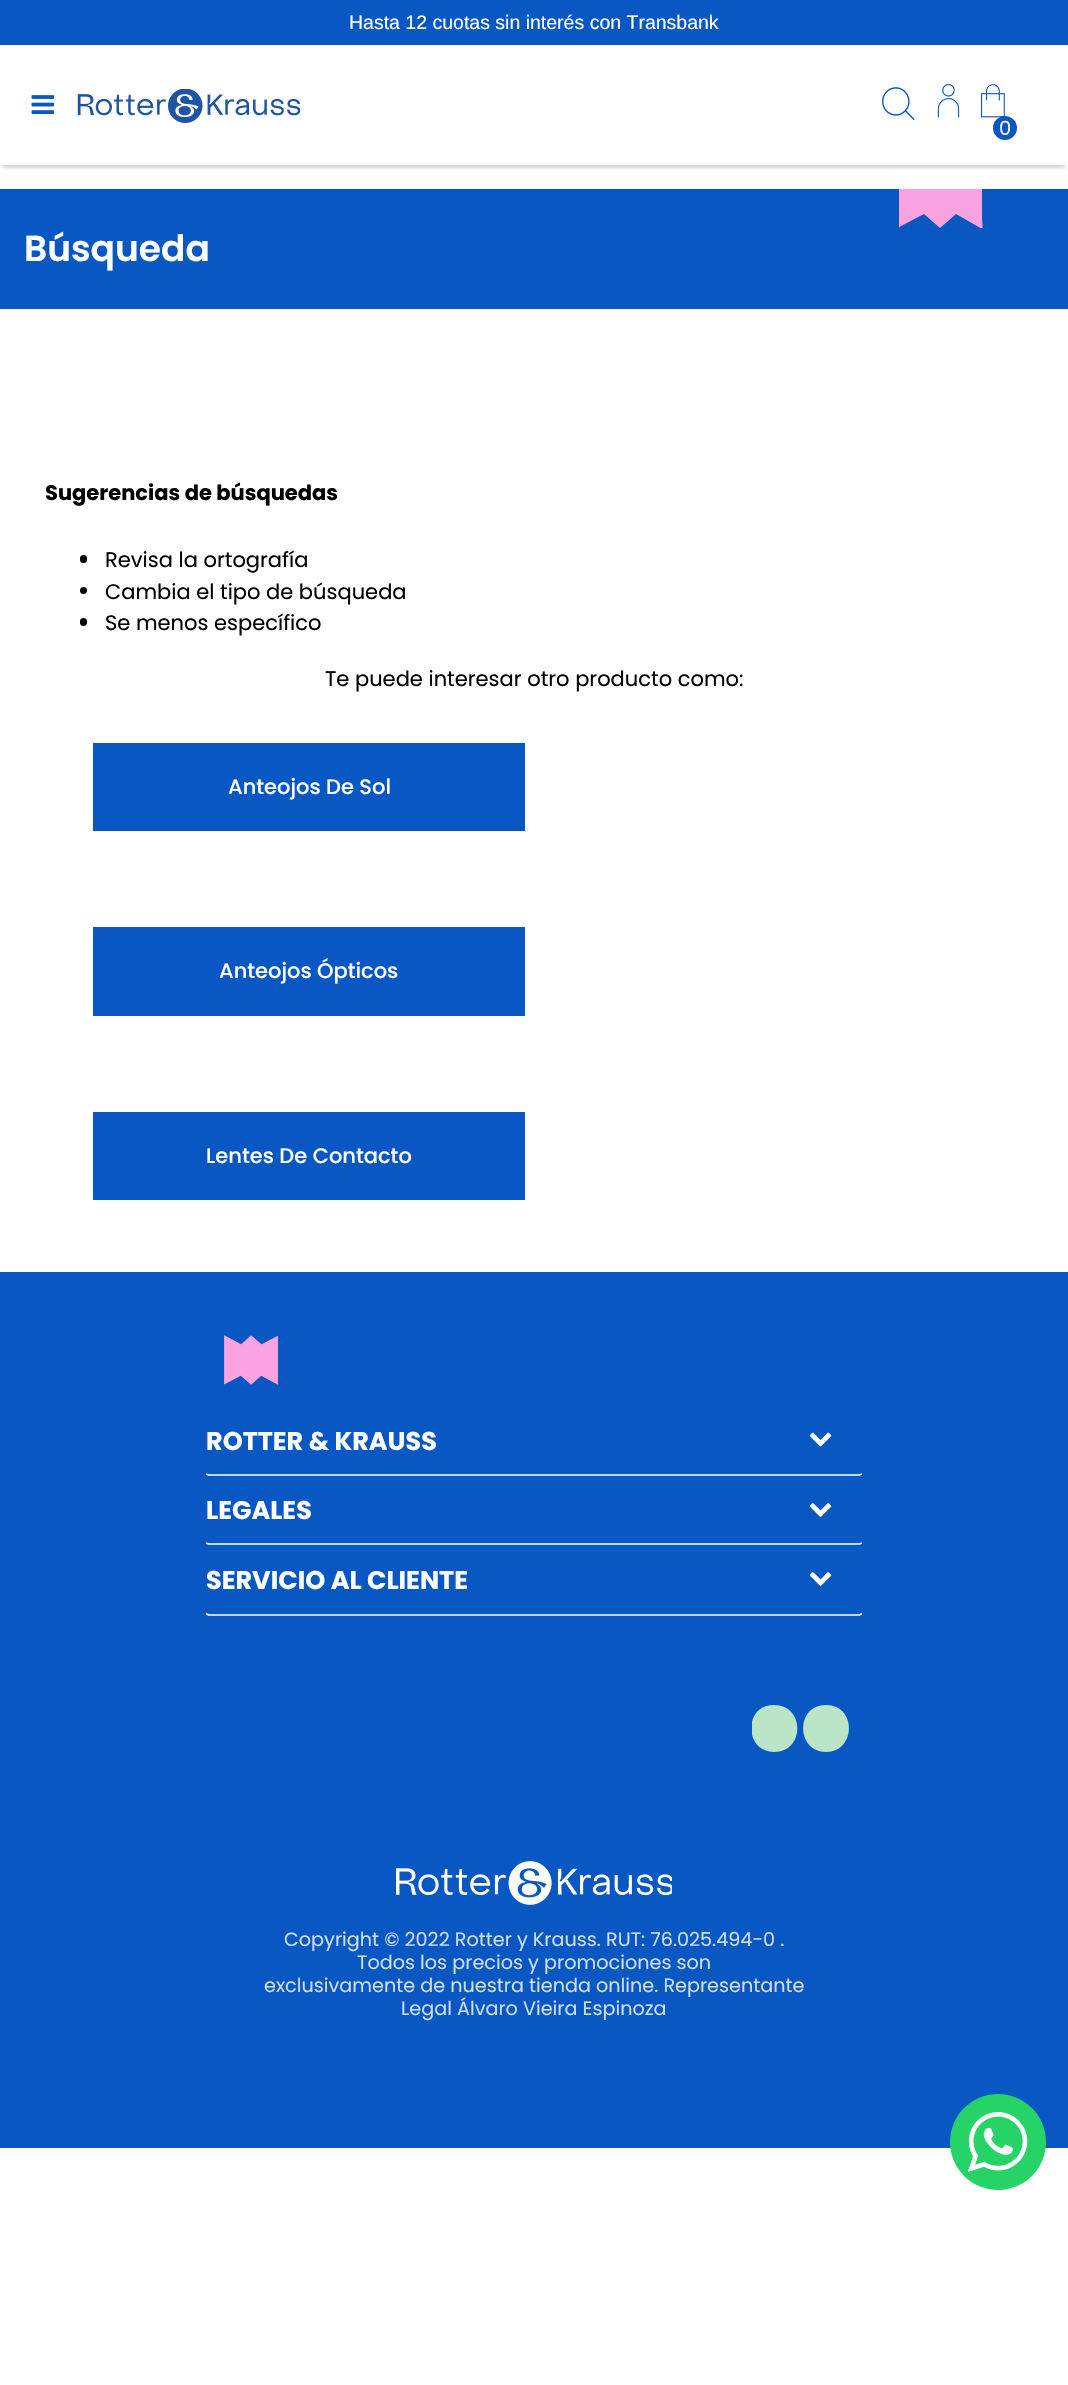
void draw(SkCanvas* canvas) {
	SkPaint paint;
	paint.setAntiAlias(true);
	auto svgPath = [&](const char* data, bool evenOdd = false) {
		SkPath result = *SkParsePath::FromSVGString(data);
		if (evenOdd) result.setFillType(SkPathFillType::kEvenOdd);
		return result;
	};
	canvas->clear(0xffffffff);
	paint.setColor(0xff0857c3);
	canvas->drawRect(SkRect::MakeXYWH(0, 0, 1068, 45), paint);
	SkFont f1(fontMgr->matchFamilyStyle("Liberation Sans", SkFontStyle::Normal()), 19.5);
	f1.setSubpixel(true);
	paint.setColor(0xffffffff);
	canvas->drawString("Hasta 12 cuotas sin interés con Transbank", 349, 29, f1, paint);
	canvas->save();
	canvas->clipRect(SkRect::MakeXYWH(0, 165, 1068, 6));
	paint.setColor(0xffd8d5d5);
	paint.setMaskFilter(SkMaskFilter::MakeBlur(kNormal_SkBlurStyle, 1.5));
	canvas->drawRect(SkRect::MakeXYWH(3, 54, 1062, 114), paint);
	paint.setMaskFilter(nullptr);
	canvas->restore();
	canvas->drawImageRect(SkImages::DeferredFromEncodedData(SkData::MakeFromFileName("img1.png")), SkRect::MakeXYWH(31, 95, 24, 19), SkSamplingOptions());
	canvas->drawImageRect(SkImages::DeferredFromEncodedData(SkData::MakeFromFileName("img2.png")), SkRect::MakeXYWH(77, 89, 224, 34), SkSamplingOptions());
	canvas->drawImageRect(SkImages::DeferredFromEncodedData(SkData::MakeFromFileName("img3.png")), SkRect::MakeXYWH(882, 87, 33, 34), SkSamplingOptions());
	canvas->drawImageRect(SkImages::DeferredFromEncodedData(SkData::MakeFromFileName("img4.png")), SkRect::MakeXYWH(937, 84, 23, 34), SkSamplingOptions());
	canvas->drawImageRect(SkImages::DeferredFromEncodedData(SkData::MakeFromFileName("img5.png")), SkRect::MakeXYWH(981, 84, 24, 34), SkSamplingOptions());
	paint.setColor(0xff0857c3);
	canvas->drawCircle(1005, 128, 12, paint);
	SkFont f2(fontMgr->matchFamilyStyle("Poppins", SkFontStyle::Normal()), 19.5);
	f2.setSubpixel(true);
	paint.setColor(0xffffffff);
	canvas->drawString("0", 999, 135, f2, paint);
	paint.setColor(0xff0857c3);
	canvas->drawRect(SkRect::MakeXYWH(0, 189, 1068, 120), paint);
	canvas->save();
	canvas->clipRect(SkRect::MakeXYWH(899, 189, 84, 39));
	paint.setColor(0xfffaa3e0);
	canvas->drawPath(svgPath("M981 151L956 164L943 152C939 148 941 149 935 155L925 164L903 152C895 148 898 149 898 163V215C898 228 895 230 903 225L924 214L940 228L956 214L977 226C985 231 982 229 982 215V151H981"), paint);
	canvas->restore();
	SkFont f3(fontMgr->matchFamilyStyle("Poppins", SkFontStyle(600, SkFontStyle::kNormal_Width, SkFontStyle::kUpright_Slant)), 36);
	f3.setSubpixel(true);
	paint.setColor(0xffffffff);
	canvas->drawString("Búsqueda", 24, 261, f3, paint);
	SkFont f4(fontMgr->matchFamilyStyle("Poppins", SkFontStyle::Bold()), 21);
	f4.setSubpixel(true);
	paint.setColor(0xff000000);
	canvas->drawString("Sugerencias de búsquedas", 45, 500, f4, paint);
	canvas->drawRoundRect(SkRect::MakeXYWH(80, 555, 7, 8), 3.5, 3.5, paint);
	SkFont f5(fontMgr->matchFamilyStyle("Poppins", SkFontStyle::Normal()), 21);
	f5.setSubpixel(true);
	canvas->drawString("Revisa la ortografía", 105, 567, f5, paint);
	canvas->drawCircle(83.5, 590.5, 3.5, paint);
	canvas->drawString("Cambia el tipo de búsqueda", 105, 599, f5, paint);
	canvas->drawRoundRect(SkRect::MakeXYWH(80, 618, 7, 8), 3.5, 3.5, paint);
	canvas->drawString("Se menos específico", 105, 630, f5, paint);
	canvas->drawString("Te puede interesar otro producto como:", 325, 686, f5, paint);
	paint.setColor(0xff0857c3);
	canvas->drawRect(SkRect::MakeXYWH(93, 743, 432, 88), paint);
	SkFont f6(fontMgr->matchFamilyStyle("Poppins", SkFontStyle(500, SkFontStyle::kNormal_Width, SkFontStyle::kUpright_Slant)), 21);
	f6.setSubpixel(true);
	paint.setColor(0xffffffff);
	canvas->drawString("Anteojos De Sol", 228, 794, f6, paint);
	paint.setColor(0xff0857c3);
	canvas->drawRect(SkRect::MakeXYWH(93, 927, 432, 89), paint);
	paint.setColor(0xffffffff);
	canvas->drawString("Anteojos Ópticos", 219, 978, f6, paint);
	paint.setColor(0xff0857c3);
	canvas->drawRect(SkRect::MakeXYWH(93, 1112, 432, 88), paint);
	paint.setColor(0xffffffff);
	canvas->drawString("Lentes De Contacto", 206, 1163, f6, paint);
	paint.setColor(0xff0857c3);
	canvas->drawRect(SkRect::MakeXYWH(0, 1272, 1068, 876), paint);
	canvas->drawImageRect(SkImages::DeferredFromEncodedData(SkData::MakeFromFileName("img6.png")), SkRect::MakeXYWH(224, 1335, 54, 50), SkSamplingOptions());
	paint.setStroke(true);
	paint.setStrokeWidth(1.5);
	paint.setColor(0xffffffff);
	canvas->drawPath(svgPath("M862 1474L859.5 1475H208.5L206 1474"), paint);
	SkFont f7(fontMgr->matchFamilyStyle("Poppins", SkFontStyle::Bold()), 25.5);
	f7.setSubpixel(true);
	paint.setStroke(false);
	canvas->drawString("ROTTER & KRAUSS", 206, 1450, f7, paint);
	canvas->drawImageRect(SkImages::DeferredFromEncodedData(SkData::MakeFromFileName("img7.png")), SkRect::MakeXYWH(809, 1432, 23, 15), SkSamplingOptions());
	paint.setStroke(true);
	canvas->drawPath(svgPath("M862 1543L859.5 1544H208.5L206 1543"), paint);
	paint.setStroke(false);
	canvas->drawString("LEGALES", 206, 1519, f7, paint);
	canvas->drawImageRect(SkImages::DeferredFromEncodedData(SkData::MakeFromFileName("img8.png")), SkRect::MakeXYWH(809, 1503, 23, 14), SkSamplingOptions());
	paint.setStroke(true);
	canvas->drawPath(svgPath("M862 1613.5L859.5 1615H208.5L206 1613.5"), paint);
	paint.setStroke(false);
	canvas->drawString("SERVICIO AL CLIENTE", 206, 1589, f7, paint);
	canvas->drawImageRect(SkImages::DeferredFromEncodedData(SkData::MakeFromFileName("img8.png")), SkRect::MakeXYWH(809, 1572, 23, 14), SkSamplingOptions());
	canvas->save();
	canvas->clipRect(SkRect::MakeXYWH(752, 1705, 97, 47));
	paint.setColor(0xffbae5c7);
	canvas->drawPath(svgPath("M774 1705C743 1705 744 1752 774 1752C805 1752 805 1705 774 1705Z"), paint);
	canvas->restore();
	canvas->drawPath(svgPath("M826 1705C795 1705 796 1752 826 1752C856 1752 857 1705 826 1705Z"), paint);
	canvas->drawImageRect(SkImages::DeferredFromEncodedData(SkData::MakeFromFileName("img9.png")), SkRect::MakeXYWH(396, 1861, 276, 44), SkSamplingOptions());
	SkFont f8(fontMgr->matchFamilyStyle("Poppins", SkFontStyle::Normal()), 19.2);
	f8.setSubpixel(true);
	paint.setColor(0xffceddf3);
	canvas->drawString("Copyright © 2022 Rotter y Krauss. RUT: 76.025.494-0 .", 284, 1946, f8, paint);
	canvas->drawString("Todos los precios y promociones son", 357, 1969, f8, paint);
	canvas->drawString("exclusivamente de nuestra tienda online. Representante", 264, 1992, f8, paint);
	canvas->drawString("Legal Álvaro Vieira Espinoza", 401, 2015, f8, paint);
	paint.setColor(0xff25d366);
	canvas->drawCircle(998, 2142, 48, paint);
	canvas->drawImageRect(SkImages::DeferredFromEncodedData(SkData::MakeFromFileName("img10.png")), SkRect::MakeXYWH(968, 2112, 60, 60), SkSamplingOptions());
}
